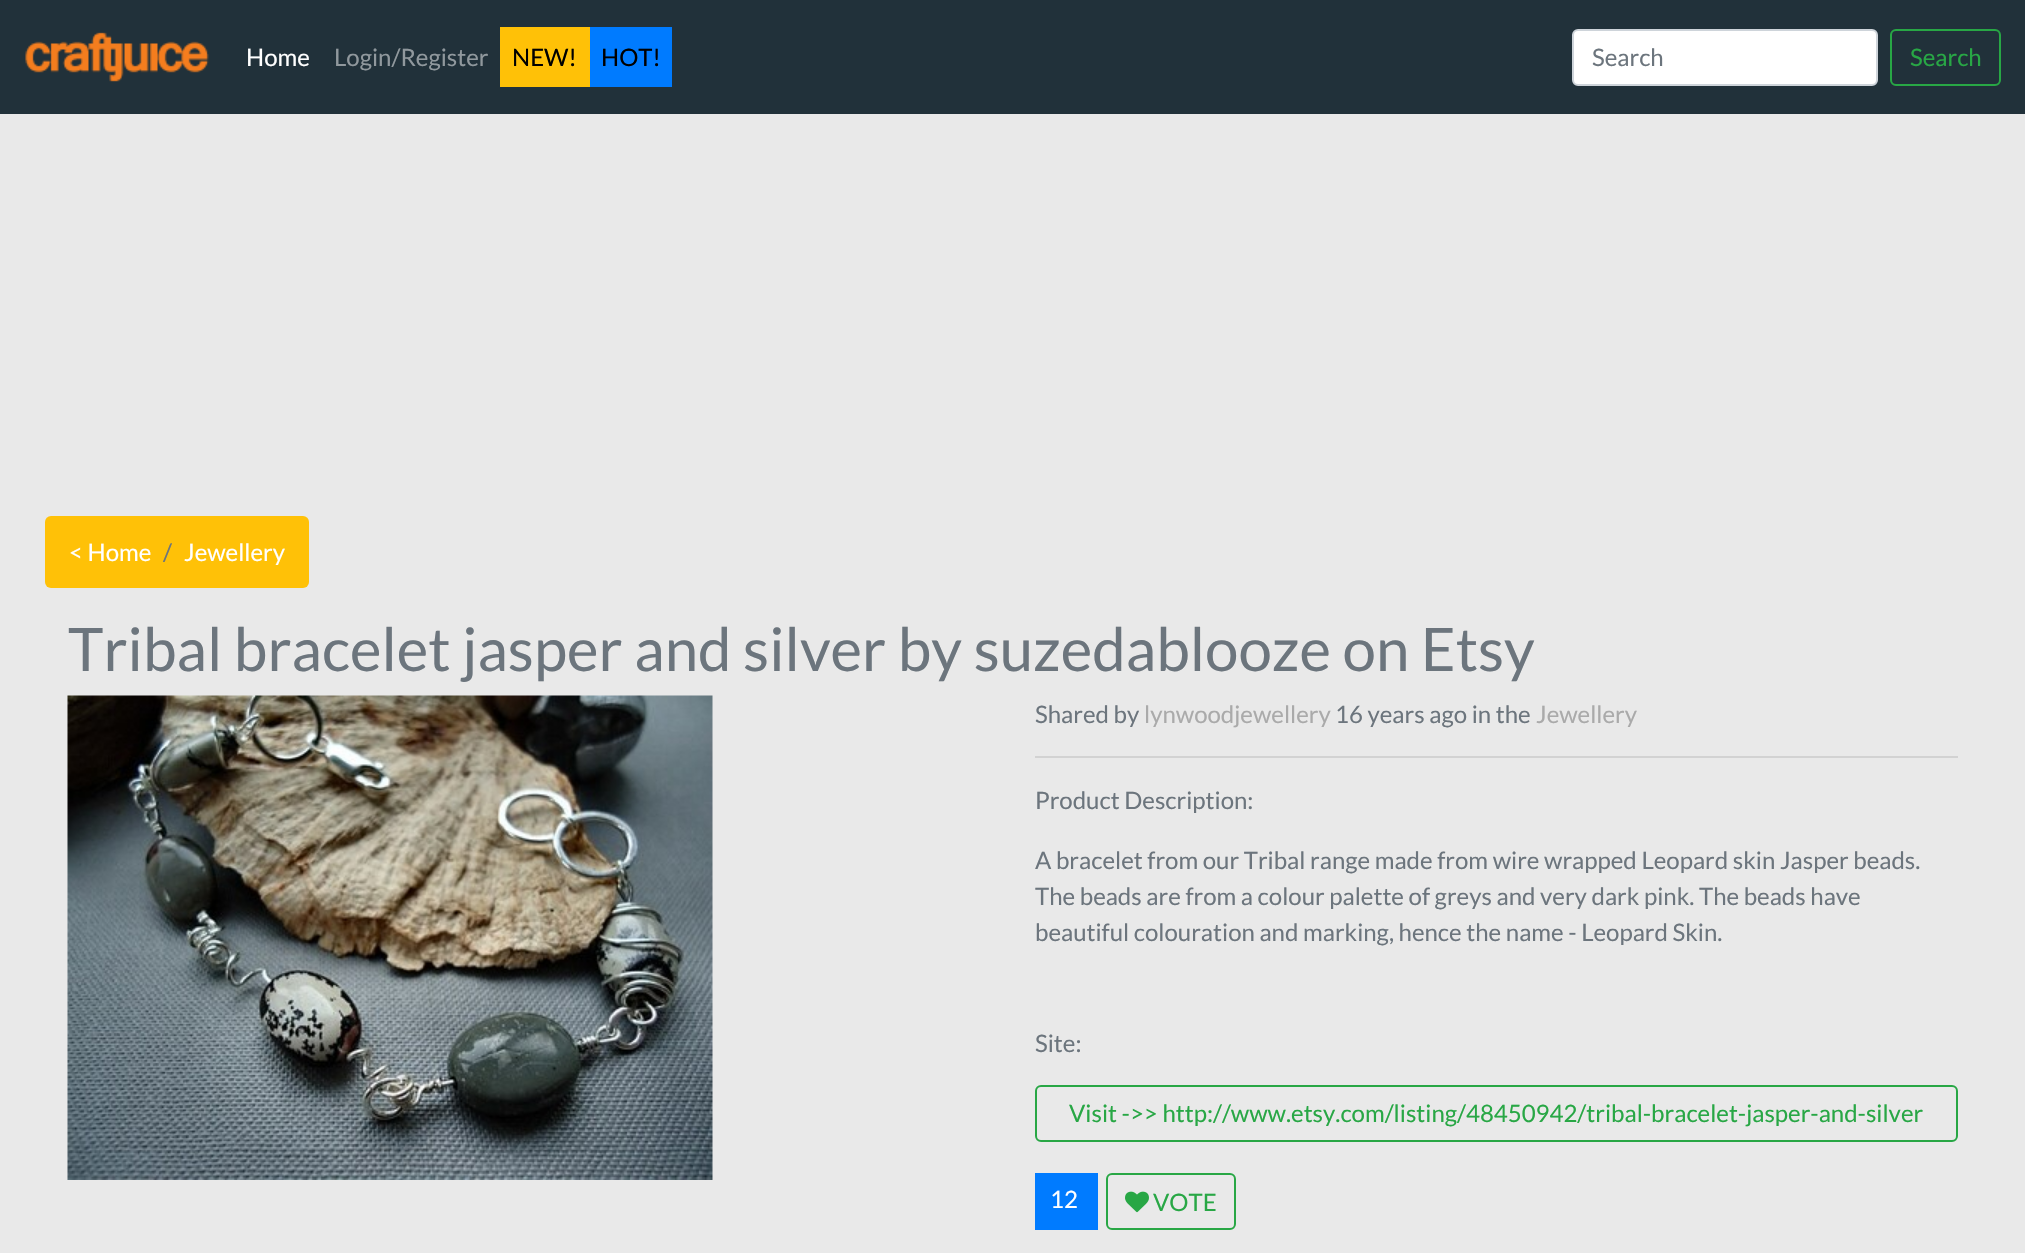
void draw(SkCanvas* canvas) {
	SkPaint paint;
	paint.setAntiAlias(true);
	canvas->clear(0xffe9e9e9);
	paint.setColor(0xff21313a);
	canvas->drawRect(SkRect::MakeXYWH(0, 0, 2025, 114), paint);
	canvas->drawImageRect(SkImages::DeferredFromEncodedData(SkData::MakeFromFileName("img1.png")), SkRect::MakeXYWH(25, 32, 184, 50), SkSamplingOptions());
	SkFont f1(fontMgr->matchFamilyStyle("Lato", SkFontStyle::Normal()), 24);
	f1.setSubpixel(true);
	paint.setColor(0xffffffff);
	canvas->drawString("Home", 246, 66, f1, paint);
	paint.setColor(0xff90989d);
	canvas->drawString("Login/Register", 334, 66, f1, paint);
	paint.setColor(0xffffc107);
	canvas->drawRect(SkRect::MakeXYWH(500, 27, 90, 60), paint);
	paint.setColor(0xff000000);
	canvas->drawString("NEW!", 512, 66, f1, paint);
	paint.setColor(0xff007bff);
	canvas->drawRect(SkRect::MakeXYWH(590, 27, 82, 60), paint);
	paint.setColor(0xff000000);
	canvas->drawString("HOT!", 601, 66, f1, paint);
	paint.setColor(0xffffffff);
	canvas->drawRoundRect(SkRect::MakeXYWH(1573, 30, 304, 55), 5, 5, paint);
	paint.setStroke(true);
	paint.setStrokeWidth(2);
	paint.setColor(0xffced4da);
	canvas->drawRoundRect(SkRect::MakeXYWH(1573, 30, 304, 55), 5, 5, paint);
	paint.setStroke(false);
	paint.setColor(0xff6c757d);
	canvas->drawString("Search", 1592, 66, f1, paint);
	paint.setStroke(true);
	paint.setColor(0xff28a745);
	canvas->drawRoundRect(SkRect::MakeXYWH(1891, 30, 109, 55), 5, 5, paint);
	paint.setStroke(false);
	canvas->drawString("Search", 1910, 66, f1, paint);
	paint.setColor(0xffffc107);
	canvas->drawRoundRect(SkRect::MakeXYWH(45, 516, 264, 72), 6, 6, paint);
	paint.setColor(0xffffffff);
	canvas->drawString("< Home", 69, 561, f1, paint);
	paint.setColor(0xff6c757d);
	canvas->drawString("/", 163, 561, f1, paint);
	paint.setColor(0xffffffff);
	canvas->drawString("Jewellery", 184, 561, f1, paint);
	SkFont f2(fontMgr->matchFamilyStyle("Lato", SkFontStyle::Normal()), 60);
	f2.setSubpixel(true);
	paint.setColor(0xff6c757d);
	canvas->drawString("Tribal bracelet jasper and silver by suzedablooze on Etsy", 68, 671, f2, paint);
	canvas->drawImageRect(SkImages::DeferredFromEncodedData(SkData::MakeFromFileName("img2.png")), SkRect::MakeXYWH(67, 695, 646, 485), SkSamplingOptions());
	canvas->drawString("Shared by", 1035, 723, f1, paint);
	paint.setColor(0xffaaaaaa);
	canvas->drawString("lynwoodjewellery", 1144, 723, f1, paint);
	paint.setColor(0xff6c757d);
	canvas->drawString("16 years ago in the", 1335, 723, f1, paint);
	paint.setColor(0xffaaaaaa);
	canvas->drawString("Jewellery", 1536, 723, f1, paint);
	paint.setColor(0xffd2d2d2);
	canvas->drawRect(SkRect::MakeXYWH(1035, 756, 923, 2), paint);
	paint.setColor(0xff6c757d);
	canvas->drawString("Product Description:", 1035, 809, f1, paint);
	canvas->drawString("A bracelet from our Tribal range made from wire wrapped Leopard skin Jasper beads.", 1035, 869, f1, paint);
	canvas->drawString("The beads are from a colour palette of greys and very dark pink. The beads have", 1035, 905, f1, paint);
	canvas->drawString("beautiful colouration and marking, hence the name - Leopard Skin.", 1035, 941, f1, paint);
	canvas->drawString("Site:", 1035, 1052, f1, paint);
	paint.setStroke(true);
	paint.setColor(0xff28a745);
	canvas->drawRoundRect(SkRect::MakeXYWH(1036, 1086, 921, 55), 5, 5, paint);
	paint.setStroke(false);
	canvas->drawString("Visit ->> http://www.etsy.com/listing/48450942/tribal-bracelet-jasper-and-silver", 1069, 1122, f1, paint);
	paint.setColor(0xff007bff);
	canvas->drawRect(SkRect::MakeXYWH(1035, 1173, 63, 57), paint);
	paint.setColor(0xffffffff);
	canvas->drawString("12", 1050, 1208, f1, paint);
	paint.setStroke(true);
	paint.setColor(0xff28a745);
	canvas->drawRoundRect(SkRect::MakeXYWH(1107, 1174, 128, 55), 5, 5, paint);
	canvas->drawImageRect(SkImages::DeferredFromEncodedData(SkData::MakeFromFileName("img3.png")), SkRect::MakeXYWH(1125, 1191, 24, 22), SkSamplingOptions());
	paint.setStroke(false);
	canvas->drawString("VOTE", 1153, 1211, f1, paint);
}
